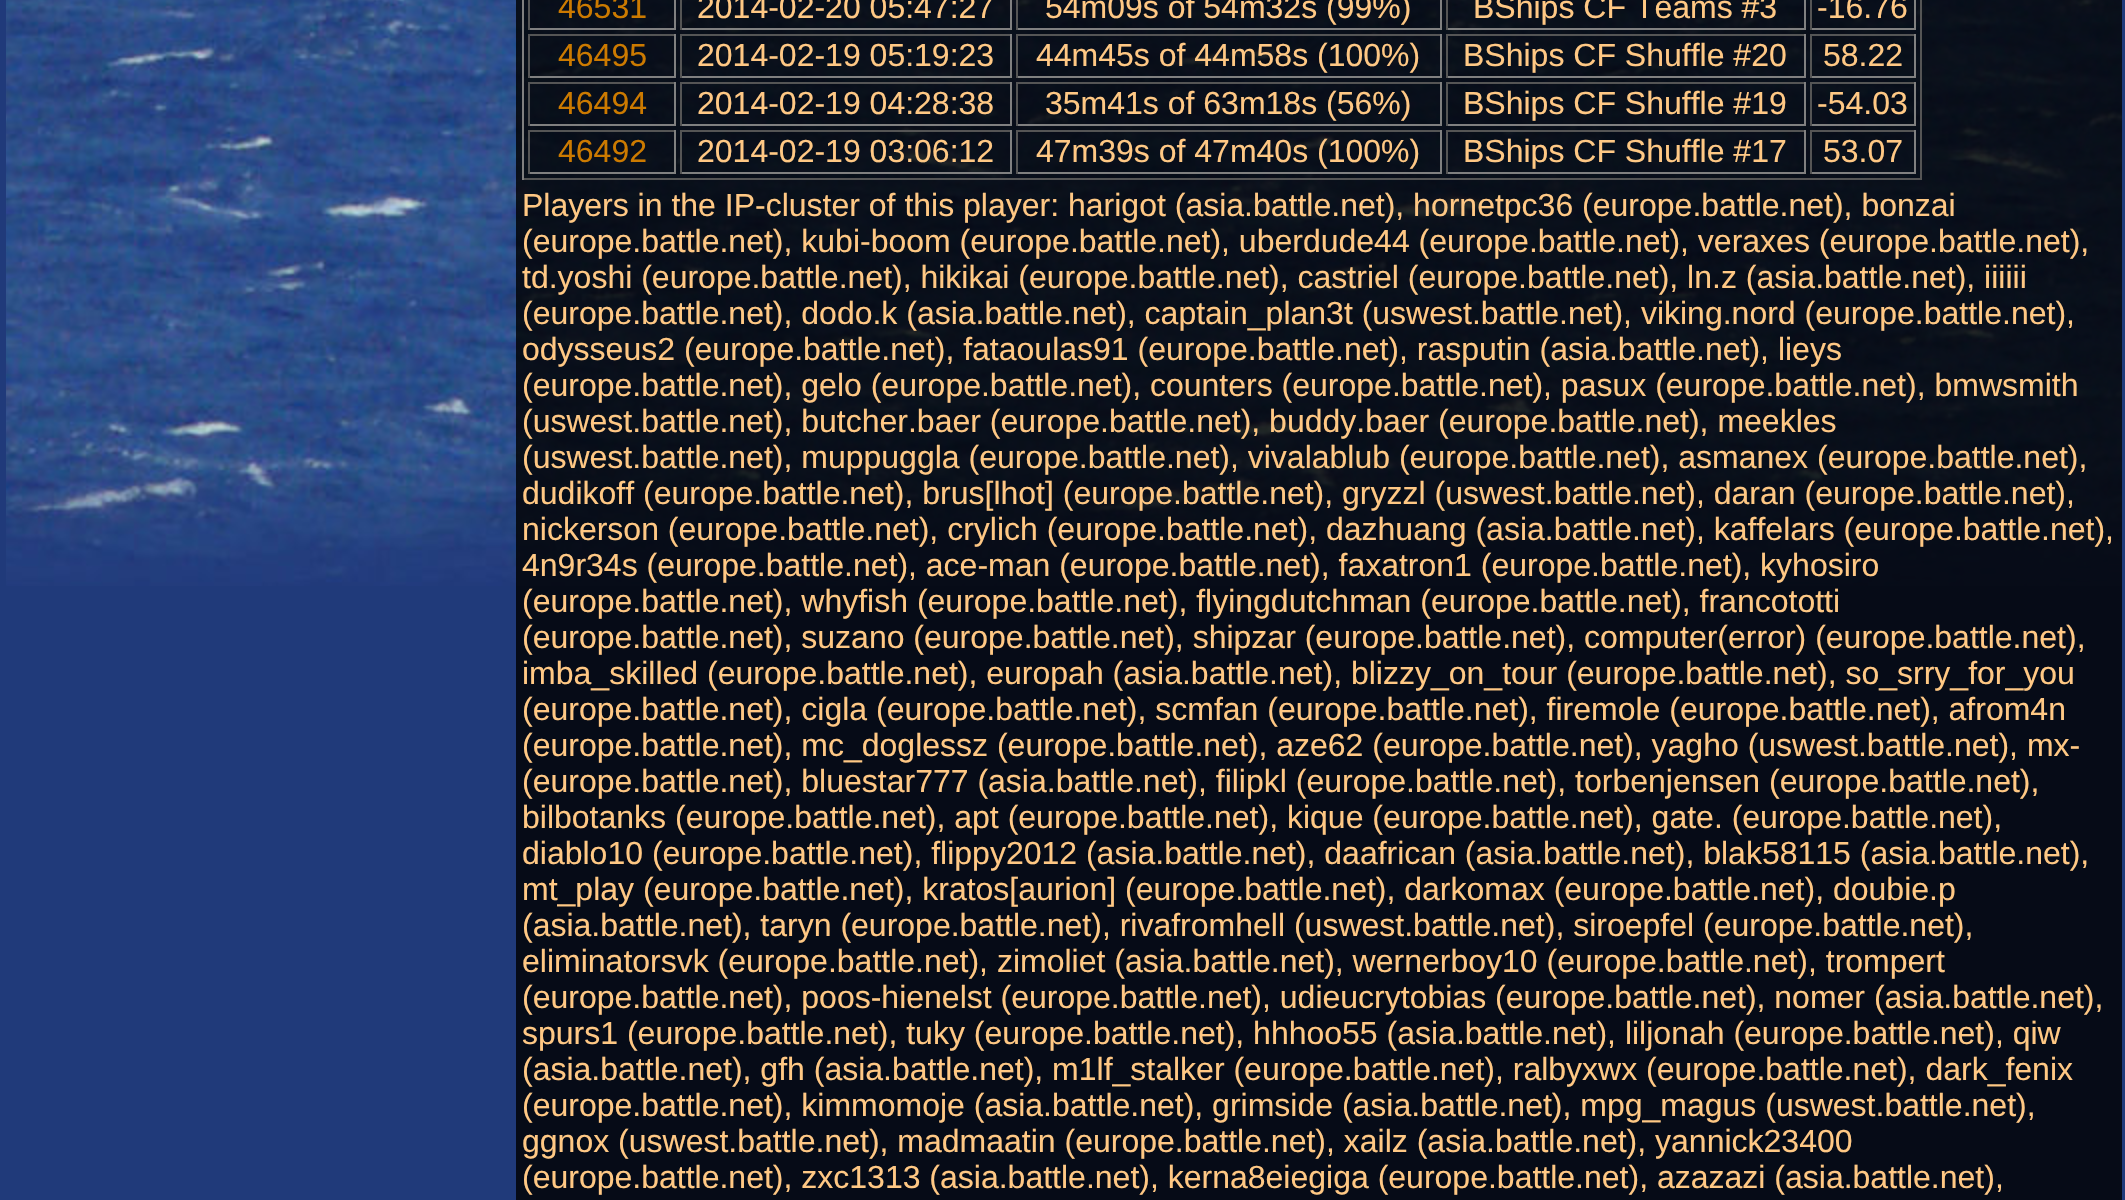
void draw(SkCanvas* canvas) {
	SkPaint paint;
	paint.setAntiAlias(true);
	canvas->clear(0xff203a7a);
	canvas->drawImageRect(SkImages::DeferredFromEncodedData(SkData::MakeFromFileName("img1.png")), SkRect::MakeXYWH(6, 0, 2116, 586), SkSamplingOptions());
	paint.setColor(0xcf000000);
	canvas->drawRect(SkRect::MakeXYWH(516, 0, 1606, 1200), paint);
	paint.setColor(0xff555555);
	canvas->drawRect(SkRect::MakeXYWH(1920, 0, 2, 180), paint);
	canvas->drawRect(SkRect::MakeXYWH(522, 178, 1400, 2), paint);
	paint.setColor(0xff808080);
	canvas->drawRect(SkRect::MakeXYWH(522, 0, 2, 180), paint);
	canvas->drawRect(SkRect::MakeXYWH(674, 0, 2, 30), paint);
	canvas->drawRect(SkRect::MakeXYWH(528, 28, 148, 2), paint);
	paint.setColor(0xff555555);
	canvas->drawRect(SkRect::MakeXYWH(528, 0, 2, 30), paint);
	SkFont f1(fontMgr->matchFamilyStyle("Liberation Sans", SkFontStyle::Normal()), 32);
	f1.setSubpixel(true);
	paint.setColor(0xffcc7a00);
	canvas->drawString("46531", 558, 18, f1, paint);
	paint.setColor(0xff808080);
	canvas->drawRect(SkRect::MakeXYWH(1010, 0, 2, 30), paint);
	canvas->drawRect(SkRect::MakeXYWH(680, 28, 332, 2), paint);
	paint.setColor(0xff555555);
	canvas->drawRect(SkRect::MakeXYWH(680, 0, 2, 30), paint);
	paint.setColor(0xffffc884);
	canvas->drawString("2014-02-20 05:47:27", 697, 18, f1, paint);
	paint.setColor(0xff808080);
	canvas->drawRect(SkRect::MakeXYWH(1440, 0, 2, 30), paint);
	canvas->drawRect(SkRect::MakeXYWH(1016, 28, 426, 2), paint);
	paint.setColor(0xff555555);
	canvas->drawRect(SkRect::MakeXYWH(1016, 0, 2, 30), paint);
	paint.setColor(0xffffc884);
	canvas->drawString("54m09s of 54m32s (99%)", 1045, 18, f1, paint);
	paint.setColor(0xff808080);
	canvas->drawRect(SkRect::MakeXYWH(1804, 0, 2, 30), paint);
	canvas->drawRect(SkRect::MakeXYWH(1446, 28, 360, 2), paint);
	paint.setColor(0xff555555);
	canvas->drawRect(SkRect::MakeXYWH(1446, 0, 2, 30), paint);
	paint.setColor(0xffffc884);
	canvas->drawString("BShips CF Teams #3", 1473, 18, f1, paint);
	paint.setColor(0xff808080);
	canvas->drawRect(SkRect::MakeXYWH(1914, 0, 2, 30), paint);
	canvas->drawRect(SkRect::MakeXYWH(1810, 28, 106, 2), paint);
	paint.setColor(0xff555555);
	canvas->drawRect(SkRect::MakeXYWH(1810, 0, 2, 30), paint);
	paint.setColor(0xffffc884);
	canvas->drawString("-16.76", 1817, 18, f1, paint);
	paint.setColor(0xff555555);
	canvas->drawRect(SkRect::MakeXYWH(528, 34, 148, 2), paint);
	paint.setColor(0xff808080);
	canvas->drawRect(SkRect::MakeXYWH(674, 34, 2, 44), paint);
	canvas->drawRect(SkRect::MakeXYWH(528, 76, 148, 2), paint);
	paint.setColor(0xff555555);
	canvas->drawRect(SkRect::MakeXYWH(528, 34, 2, 44), paint);
	paint.setColor(0xffcc7a00);
	canvas->drawString("46495", 558, 66, f1, paint);
	paint.setColor(0xff555555);
	canvas->drawRect(SkRect::MakeXYWH(680, 34, 332, 2), paint);
	paint.setColor(0xff808080);
	canvas->drawRect(SkRect::MakeXYWH(1010, 34, 2, 44), paint);
	canvas->drawRect(SkRect::MakeXYWH(680, 76, 332, 2), paint);
	paint.setColor(0xff555555);
	canvas->drawRect(SkRect::MakeXYWH(680, 34, 2, 44), paint);
	paint.setColor(0xffffc884);
	canvas->drawString("2014-02-19 05:19:23", 697, 66, f1, paint);
	paint.setColor(0xff555555);
	canvas->drawRect(SkRect::MakeXYWH(1016, 34, 426, 2), paint);
	paint.setColor(0xff808080);
	canvas->drawRect(SkRect::MakeXYWH(1440, 34, 2, 44), paint);
	canvas->drawRect(SkRect::MakeXYWH(1016, 76, 426, 2), paint);
	paint.setColor(0xff555555);
	canvas->drawRect(SkRect::MakeXYWH(1016, 34, 2, 44), paint);
	paint.setColor(0xffffc884);
	canvas->drawString("44m45s of 44m58s (100%)", 1036, 66, f1, paint);
	paint.setColor(0xff555555);
	canvas->drawRect(SkRect::MakeXYWH(1446, 34, 360, 2), paint);
	paint.setColor(0xff808080);
	canvas->drawRect(SkRect::MakeXYWH(1804, 34, 2, 44), paint);
	canvas->drawRect(SkRect::MakeXYWH(1446, 76, 360, 2), paint);
	paint.setColor(0xff555555);
	canvas->drawRect(SkRect::MakeXYWH(1446, 34, 2, 44), paint);
	paint.setColor(0xffffc884);
	canvas->drawString("BShips CF Shuffle #20", 1463, 66, f1, paint);
	paint.setColor(0xff555555);
	canvas->drawRect(SkRect::MakeXYWH(1810, 34, 106, 2), paint);
	paint.setColor(0xff808080);
	canvas->drawRect(SkRect::MakeXYWH(1914, 34, 2, 44), paint);
	canvas->drawRect(SkRect::MakeXYWH(1810, 76, 106, 2), paint);
	paint.setColor(0xff555555);
	canvas->drawRect(SkRect::MakeXYWH(1810, 34, 2, 44), paint);
	paint.setColor(0xffffc884);
	canvas->drawString("58.22", 1823, 66, f1, paint);
	paint.setColor(0xff555555);
	canvas->drawRect(SkRect::MakeXYWH(528, 82, 148, 2), paint);
	paint.setColor(0xff808080);
	canvas->drawRect(SkRect::MakeXYWH(674, 82, 2, 44), paint);
	canvas->drawRect(SkRect::MakeXYWH(528, 124, 148, 2), paint);
	paint.setColor(0xff555555);
	canvas->drawRect(SkRect::MakeXYWH(528, 82, 2, 44), paint);
	paint.setColor(0xffcc7a00);
	canvas->drawString("46494", 558, 114, f1, paint);
	paint.setColor(0xff555555);
	canvas->drawRect(SkRect::MakeXYWH(680, 82, 332, 2), paint);
	paint.setColor(0xff808080);
	canvas->drawRect(SkRect::MakeXYWH(1010, 82, 2, 44), paint);
	canvas->drawRect(SkRect::MakeXYWH(680, 124, 332, 2), paint);
	paint.setColor(0xff555555);
	canvas->drawRect(SkRect::MakeXYWH(680, 82, 2, 44), paint);
	paint.setColor(0xffffc884);
	canvas->drawString("2014-02-19 04:28:38", 697, 114, f1, paint);
	paint.setColor(0xff555555);
	canvas->drawRect(SkRect::MakeXYWH(1016, 82, 426, 2), paint);
	paint.setColor(0xff808080);
	canvas->drawRect(SkRect::MakeXYWH(1440, 82, 2, 44), paint);
	canvas->drawRect(SkRect::MakeXYWH(1016, 124, 426, 2), paint);
	paint.setColor(0xff555555);
	canvas->drawRect(SkRect::MakeXYWH(1016, 82, 2, 44), paint);
	paint.setColor(0xffffc884);
	canvas->drawString("35m41s of 63m18s (56%)", 1045, 114, f1, paint);
	paint.setColor(0xff555555);
	canvas->drawRect(SkRect::MakeXYWH(1446, 82, 360, 2), paint);
	paint.setColor(0xff808080);
	canvas->drawRect(SkRect::MakeXYWH(1804, 82, 2, 44), paint);
	canvas->drawRect(SkRect::MakeXYWH(1446, 124, 360, 2), paint);
	paint.setColor(0xff555555);
	canvas->drawRect(SkRect::MakeXYWH(1446, 82, 2, 44), paint);
	paint.setColor(0xffffc884);
	canvas->drawString("BShips CF Shuffle #19", 1463, 114, f1, paint);
	paint.setColor(0xff555555);
	canvas->drawRect(SkRect::MakeXYWH(1810, 82, 106, 2), paint);
	paint.setColor(0xff808080);
	canvas->drawRect(SkRect::MakeXYWH(1914, 82, 2, 44), paint);
	canvas->drawRect(SkRect::MakeXYWH(1810, 124, 106, 2), paint);
	paint.setColor(0xff555555);
	canvas->drawRect(SkRect::MakeXYWH(1810, 82, 2, 44), paint);
	paint.setColor(0xffffc884);
	canvas->drawString("-54.03", 1817, 114, f1, paint);
	paint.setColor(0xff555555);
	canvas->drawRect(SkRect::MakeXYWH(528, 130, 148, 2), paint);
	paint.setColor(0xff808080);
	canvas->drawRect(SkRect::MakeXYWH(674, 130, 2, 44), paint);
	canvas->drawRect(SkRect::MakeXYWH(528, 172, 148, 2), paint);
	paint.setColor(0xff555555);
	canvas->drawRect(SkRect::MakeXYWH(528, 130, 2, 44), paint);
	paint.setColor(0xffcc7a00);
	canvas->drawString("46492", 558, 162, f1, paint);
	paint.setColor(0xff555555);
	canvas->drawRect(SkRect::MakeXYWH(680, 130, 332, 2), paint);
	paint.setColor(0xff808080);
	canvas->drawRect(SkRect::MakeXYWH(1010, 130, 2, 44), paint);
	canvas->drawRect(SkRect::MakeXYWH(680, 172, 332, 2), paint);
	paint.setColor(0xff555555);
	canvas->drawRect(SkRect::MakeXYWH(680, 130, 2, 44), paint);
	paint.setColor(0xffffc884);
	canvas->drawString("2014-02-19 03:06:12", 697, 162, f1, paint);
	paint.setColor(0xff555555);
	canvas->drawRect(SkRect::MakeXYWH(1016, 130, 426, 2), paint);
	paint.setColor(0xff808080);
	canvas->drawRect(SkRect::MakeXYWH(1440, 130, 2, 44), paint);
	canvas->drawRect(SkRect::MakeXYWH(1016, 172, 426, 2), paint);
	paint.setColor(0xff555555);
	canvas->drawRect(SkRect::MakeXYWH(1016, 130, 2, 44), paint);
	paint.setColor(0xffffc884);
	canvas->drawString("47m39s of 47m40s (100%)", 1036, 162, f1, paint);
	paint.setColor(0xff555555);
	canvas->drawRect(SkRect::MakeXYWH(1446, 130, 360, 2), paint);
	paint.setColor(0xff808080);
	canvas->drawRect(SkRect::MakeXYWH(1804, 130, 2, 44), paint);
	canvas->drawRect(SkRect::MakeXYWH(1446, 172, 360, 2), paint);
	paint.setColor(0xff555555);
	canvas->drawRect(SkRect::MakeXYWH(1446, 130, 2, 44), paint);
	paint.setColor(0xffffc884);
	canvas->drawString("BShips CF Shuffle #17", 1463, 162, f1, paint);
	paint.setColor(0xff555555);
	canvas->drawRect(SkRect::MakeXYWH(1810, 130, 106, 2), paint);
	paint.setColor(0xff808080);
	canvas->drawRect(SkRect::MakeXYWH(1914, 130, 2, 44), paint);
	canvas->drawRect(SkRect::MakeXYWH(1810, 172, 106, 2), paint);
	paint.setColor(0xff555555);
	canvas->drawRect(SkRect::MakeXYWH(1810, 130, 2, 44), paint);
	paint.setColor(0xffffc884);
	canvas->drawString("53.07", 1823, 162, f1, paint);
	canvas->drawString("Players in the IP-cluster of this player: harigot (asia.battle.net), hornetpc36 (europe.battle.net), bonzai", 522, 216, f1, paint);
	canvas->drawString("(europe.battle.net), kubi-boom (europe.battle.net), uberdude44 (europe.battle.net), veraxes (europe.battle.net),", 522, 252, f1, paint);
	canvas->drawString("td.yoshi (europe.battle.net), hikikai (europe.battle.net), castriel (europe.battle.net), ln.z (asia.battle.net), iiiiii", 522, 288, f1, paint);
	canvas->drawString("(europe.battle.net), dodo.k (asia.battle.net), captain_plan3t (uswest.battle.net), viking.nord (europe.battle.net),", 522, 324, f1, paint);
	canvas->drawString("odysseus2 (europe.battle.net), fataoulas91 (europe.battle.net), rasputin (asia.battle.net), lieys", 522, 360, f1, paint);
	canvas->drawString("(europe.battle.net), gelo (europe.battle.net), counters (europe.battle.net), pasux (europe.battle.net), bmwsmith", 522, 396, f1, paint);
	canvas->drawString("(uswest.battle.net), butcher.baer (europe.battle.net), buddy.baer (europe.battle.net), meekles", 522, 432, f1, paint);
	canvas->drawString("(uswest.battle.net), muppuggla (europe.battle.net), vivalablub (europe.battle.net), asmanex (europe.battle.net),", 522, 468, f1, paint);
	canvas->drawString("dudikoff (europe.battle.net), brus[lhot] (europe.battle.net), gryzzl (uswest.battle.net), daran (europe.battle.net),", 522, 504, f1, paint);
	canvas->drawString("nickerson (europe.battle.net), crylich (europe.battle.net), dazhuang (asia.battle.net), kaffelars (europe.battle.net),", 522, 540, f1, paint);
	canvas->drawString("4n9r34s (europe.battle.net), ace-man (europe.battle.net), faxatron1 (europe.battle.net), kyhosiro", 522, 576, f1, paint);
	canvas->drawString("(europe.battle.net), whyfish (europe.battle.net), flyingdutchman (europe.battle.net), francototti", 522, 612, f1, paint);
	canvas->drawString("(europe.battle.net), suzano (europe.battle.net), shipzar (europe.battle.net), computer(error) (europe.battle.net),", 522, 648, f1, paint);
	canvas->drawString("imba_skilled (europe.battle.net), europah (asia.battle.net), blizzy_on_tour (europe.battle.net), so_srry_for_you", 522, 684, f1, paint);
	canvas->drawString("(europe.battle.net), cigla (europe.battle.net), scmfan (europe.battle.net), firemole (europe.battle.net), afrom4n", 522, 720, f1, paint);
	canvas->drawString("(europe.battle.net), mc_doglessz (europe.battle.net), aze62 (europe.battle.net), yagho (uswest.battle.net), mx-", 522, 756, f1, paint);
	canvas->drawString("(europe.battle.net), bluestar777 (asia.battle.net), filipkl (europe.battle.net), torbenjensen (europe.battle.net),", 522, 792, f1, paint);
	canvas->drawString("bilbotanks (europe.battle.net), apt (europe.battle.net), kique (europe.battle.net), gate. (europe.battle.net),", 522, 828, f1, paint);
	canvas->drawString("diablo10 (europe.battle.net), flippy2012 (asia.battle.net), daafrican (asia.battle.net), blak58115 (asia.battle.net),", 522, 864, f1, paint);
	canvas->drawString("mt_play (europe.battle.net), kratos[aurion] (europe.battle.net), darkomax (europe.battle.net), doubie.p", 522, 900, f1, paint);
	canvas->drawString("(asia.battle.net), taryn (europe.battle.net), rivafromhell (uswest.battle.net), siroepfel (europe.battle.net),", 522, 936, f1, paint);
	canvas->drawString("eliminatorsvk (europe.battle.net), zimoliet (asia.battle.net), wernerboy10 (europe.battle.net), trompert", 522, 972, f1, paint);
	canvas->drawString("(europe.battle.net), poos-hienelst (europe.battle.net), udieucrytobias (europe.battle.net), nomer (asia.battle.net),", 522, 1008, f1, paint);
	canvas->drawString("spurs1 (europe.battle.net), tuky (europe.battle.net), hhhoo55 (asia.battle.net), liljonah (europe.battle.net), qiw", 522, 1044, f1, paint);
	canvas->drawString("(asia.battle.net), gfh (asia.battle.net), m1lf_stalker (europe.battle.net), ralbyxwx (europe.battle.net), dark_fenix", 522, 1080, f1, paint);
	canvas->drawString("(europe.battle.net), kimmomoje (asia.battle.net), grimside (asia.battle.net), mpg_magus (uswest.battle.net),", 522, 1116, f1, paint);
	canvas->drawString("ggnox (uswest.battle.net), madmaatin (europe.battle.net), xailz (asia.battle.net), yannick23400", 522, 1152, f1, paint);
	canvas->drawString("(europe.battle.net), zxc1313 (asia.battle.net), kerna8eiegiga (europe.battle.net), azazazi (asia.battle.net),", 522, 1188, f1, paint);
}
